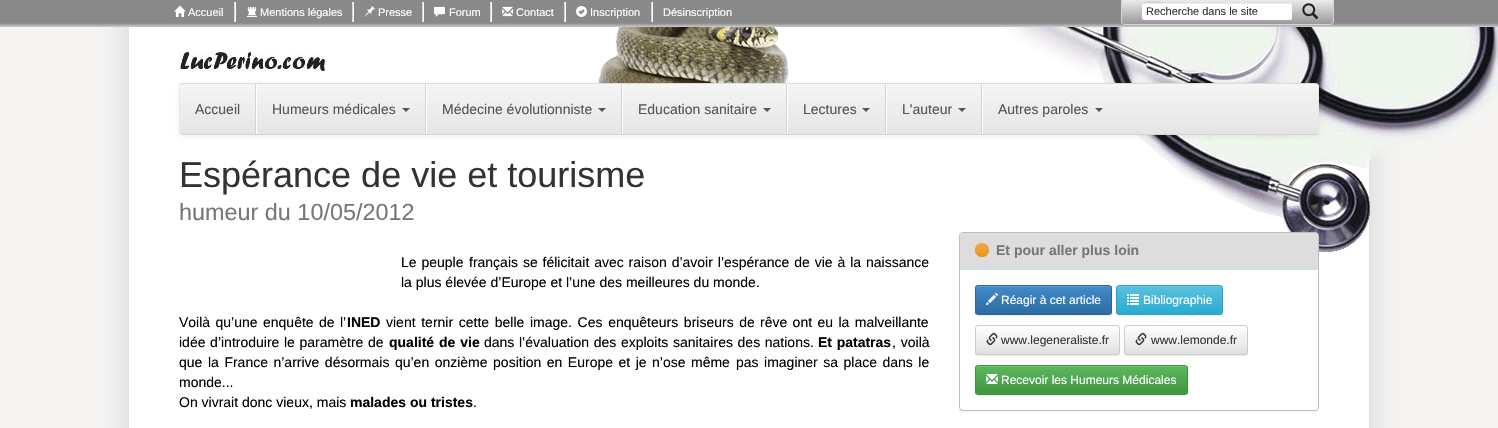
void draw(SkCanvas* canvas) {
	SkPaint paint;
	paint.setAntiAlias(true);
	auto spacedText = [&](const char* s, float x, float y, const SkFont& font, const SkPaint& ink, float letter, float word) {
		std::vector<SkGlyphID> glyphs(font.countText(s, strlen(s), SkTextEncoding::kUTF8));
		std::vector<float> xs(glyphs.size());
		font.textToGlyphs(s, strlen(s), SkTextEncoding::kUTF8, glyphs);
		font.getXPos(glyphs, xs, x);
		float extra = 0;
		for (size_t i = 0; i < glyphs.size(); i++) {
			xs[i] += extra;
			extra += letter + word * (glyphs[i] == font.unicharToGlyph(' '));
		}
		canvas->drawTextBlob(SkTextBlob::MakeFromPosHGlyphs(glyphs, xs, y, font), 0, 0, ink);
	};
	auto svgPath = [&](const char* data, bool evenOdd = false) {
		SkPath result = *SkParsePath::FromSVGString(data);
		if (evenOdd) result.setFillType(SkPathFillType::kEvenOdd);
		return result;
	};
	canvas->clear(0xfff6f5f4);
	paint.setColor(0xffd5d5d5);
	paint.setMaskFilter(SkMaskFilter::MakeBlur(kNormal_SkBlurStyle, 15));
	canvas->drawRect(SkRect::MakeXYWH(127, 5, 1244, 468), paint);
	paint.setMaskFilter(nullptr);
	{
		const SkColor colors[] = {0xff898989, 0xffffffff};
		const float stops[] = {0.77, 1};
		const SkPoint ends[] = {{749, 0}, {749, 30}};
		paint.setShader(SkGradientShader::MakeLinear(ends, colors, stops, 2, SkTileMode::kClamp));
		paint.setAlpha(255);
	}
	canvas->drawRect(SkRect::MakeXYWH(0, 0, 1498, 27), paint);
	paint.setShader(nullptr);
	paint.setColor(0xffd5d5d5);
	canvas->drawRect(SkRect::MakeXYWH(234, 2, 1, 20), paint);
	canvas->drawImageRect(SkImages::DeferredFromEncodedData(SkData::MakeFromFileName("img1.png")), SkRect::MakeXYWH(174, 5, 12, 12), SkSamplingOptions());
	SkFont f1(fontMgr->matchFamilyStyle("Liberation Sans", SkFontStyle::Normal()), 11);
	f1.setSubpixel(true);
	paint.setColor(0xffffffff);
	canvas->drawString("Accueil", 188, 16, f1, paint);
	paint.setColor(0xffd5d5d5);
	canvas->drawRect(SkRect::MakeXYWH(352, 2, 1, 20), paint);
	paint.setColor(0xffffffff);
	canvas->drawRect(SkRect::MakeXYWH(235, 2, 1, 20), paint);
	canvas->drawImageRect(SkImages::DeferredFromEncodedData(SkData::MakeFromFileName("img2.png")), SkRect::MakeXYWH(246, 6, 11, 11), SkSamplingOptions());
	canvas->drawString("Mentions légales", 260, 16, f1, paint);
	paint.setColor(0xffd5d5d5);
	canvas->drawRect(SkRect::MakeXYWH(422, 2, 1, 20), paint);
	paint.setColor(0xffffffff);
	canvas->drawRect(SkRect::MakeXYWH(353, 2, 1, 20), paint);
	canvas->drawImageRect(SkImages::DeferredFromEncodedData(SkData::MakeFromFileName("img3.png")), SkRect::MakeXYWH(364, 6, 11, 11), SkSamplingOptions());
	canvas->drawString("Presse", 378, 16, f1, paint);
	paint.setColor(0xffd5d5d5);
	canvas->drawRect(SkRect::MakeXYWH(490, 2, 1, 20), paint);
	paint.setColor(0xffffffff);
	canvas->drawRect(SkRect::MakeXYWH(423, 2, 1, 20), paint);
	canvas->drawImageRect(SkImages::DeferredFromEncodedData(SkData::MakeFromFileName("img4.png")), SkRect::MakeXYWH(434, 6, 11, 11), SkSamplingOptions());
	canvas->drawString("Forum", 449, 16, f1, paint);
	paint.setColor(0xffd5d5d5);
	canvas->drawRect(SkRect::MakeXYWH(564, 2, 1, 20), paint);
	paint.setColor(0xffffffff);
	canvas->drawRect(SkRect::MakeXYWH(491, 2, 1, 20), paint);
	canvas->drawImageRect(SkImages::DeferredFromEncodedData(SkData::MakeFromFileName("img5.png")), SkRect::MakeXYWH(502, 6, 11, 11), SkSamplingOptions());
	canvas->drawString("Contact", 516, 16, f1, paint);
	paint.setColor(0xffd5d5d5);
	canvas->drawRect(SkRect::MakeXYWH(651, 2, 1, 20), paint);
	paint.setColor(0xffffffff);
	canvas->drawRect(SkRect::MakeXYWH(565, 2, 1, 20), paint);
	canvas->drawImageRect(SkImages::DeferredFromEncodedData(SkData::MakeFromFileName("img6.png")), SkRect::MakeXYWH(576, 6, 11, 11), SkSamplingOptions());
	canvas->drawString("Inscription", 590, 16, f1, paint);
	canvas->drawRect(SkRect::MakeXYWH(652, 2, 1, 20), paint);
	canvas->drawString("Désinscription", 663, 16, f1, paint);
	canvas->save();
	canvas->clipPath(svgPath("M1121-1H1334V21C1334 23 1332 25 1330 25H1125C1123 25 1121 23 1121 21Z"), true);
	{
		const SkColor colors[] = {0xffeeeeee, 0xff999999};
		const float stops[] = {0, 1};
		const SkPoint ends[] = {{1228, -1}, {1228, 24}};
		paint.setShader(SkGradientShader::MakeLinear(ends, colors, stops, 2, SkTileMode::kClamp));
		paint.setAlpha(255);
	}
	canvas->drawRect(SkRect::MakeXYWH(1121, 0, 213, 24), paint);
	canvas->restore();
	paint.setShader(nullptr);
	paint.setColor(0xffd5d5d5);
	canvas->drawPath(svgPath("M1121-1H1334V21C1334 23 1332 25 1330 25H1125C1123 25 1121 23 1121 21ZM1122-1H1333V21C1333 23 1332 24 1330 24H1125C1123 24 1122 23 1122 21Z", true), paint);
	paint.setColor(0xffffffff);
	canvas->drawRoundRect(SkRect::MakeXYWH(1142, 3, 150, 17), 2, 2, paint);
	paint.setColor(0x12000000);
	canvas->drawPath(svgPath("M1144 4H1290C1291 4 1292 5 1292 6C1292 5 1292 4 1291 3H1168C1165 3 1142-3 1142 6C1142 5 1143 4 1144 4Z"), paint);
	paint.setColor(0xff333333);
	canvas->drawString("Recherche dans le site", 1146, 15, f1, paint);
	canvas->drawImageRect(SkImages::DeferredFromEncodedData(SkData::MakeFromFileName("img7.png")), SkRect::MakeXYWH(1302, 3, 17, 17), SkSamplingOptions());
	paint.setColor(0xffffffff);
	canvas->drawRect(SkRect::MakeXYWH(129, 27, 1240, 401), paint);
	canvas->drawImageRect(SkImages::DeferredFromEncodedData(SkData::MakeFromFileName("img8.png")), SkRect::MakeXYWH(598, 27, 900, 225), SkSamplingOptions());
	canvas->drawImageRect(SkImages::DeferredFromEncodedData(SkData::MakeFromFileName("img9.png")), SkRect::MakeXYWH(179, 51, 148, 20), SkSamplingOptions());
	paint.setColor(0x12000000);
	paint.setMaskFilter(SkMaskFilter::MakeBlur(kNormal_SkBlurStyle, 2.5));
	canvas->drawRoundRect(SkRect::MakeXYWH(179, 84, 1140, 52), 4, 4, paint);
	paint.setMaskFilter(nullptr);
	paint.setColor(0xffe5e5e5);
	canvas->drawRoundRect(SkRect::MakeXYWH(179, 83, 1140, 52), 4, 4, paint);
	canvas->save();
	canvas->clipPath(svgPath("M183 83H1315C1317 83 1319 85 1319 87V131C1319 133 1317 135 1315 135H183C181 135 179 133 179 131V87C179 85 181 83 183 83Z"), true);
	{
		const SkColor colors[] = {0xfff5f5f5, 0xffe5e5e5};
		const float stops[] = {0, 1};
		const SkPoint ends[] = {{749, 84}, {749, 134}};
		paint.setShader(SkGradientShader::MakeLinear(ends, colors, stops, 2, SkTileMode::kClamp));
		paint.setAlpha(255);
	}
	canvas->drawRect(SkRect::MakeXYWH(179, 84, 1140, 50), paint);
	canvas->restore();
	paint.setStroke(true);
	paint.setStrokeWidth(1);
	paint.setShader(nullptr);
	paint.setColor(0xffdddddd);
	canvas->drawPath(svgPath("M180.5 84.5L183 83.5H1315L1317.5 84.5"), paint);
	paint.setColor(0xffe7e7e7);
	canvas->drawPath(svgPath("M1317.5 84.5C1318 85 1318.5 86 1318.5 87V131C1318.5 132 1318 133 1317.5 133.5"), paint);
	paint.setColor(0xffd5d5d5);
	canvas->drawPath(svgPath("M1317.5 133.5L1315 134.5H183L180.5 133.5"), paint);
	paint.setColor(0xffe7e7e7);
	canvas->drawPath(svgPath("M180.5 133.5C180 133 179.5 132 179.5 131V87C179.5 86 180 85 180.5 84.5"), paint);
	paint.setStroke(false);
	paint.setColor(0xffd5d5d5);
	canvas->drawRect(SkRect::MakeXYWH(255, 84, 1, 50), paint);
	SkFont f2(fontMgr->matchFamilyStyle("Liberation Sans", SkFontStyle::Normal()), 14);
	f2.setSubpixel(true);
	paint.setColor(0xff555555);
	canvas->drawString("Accueil", 195, 114, f2, paint);
	paint.setColor(0xffd5d5d5);
	canvas->drawRect(SkRect::MakeXYWH(425, 84, 1, 50), paint);
	paint.setColor(0xffffffff);
	canvas->drawRect(SkRect::MakeXYWH(256, 84, 1, 50), paint);
	paint.setColor(0xff555555);
	canvas->drawString("Humeurs médicales", 272, 114, f2, paint);
	canvas->drawPath(svgPath("M402 108H410L406 112Z"), paint);
	paint.setColor(0xffd5d5d5);
	canvas->drawRect(SkRect::MakeXYWH(621, 84, 1, 50), paint);
	paint.setColor(0xffffffff);
	canvas->drawRect(SkRect::MakeXYWH(426, 84, 1, 50), paint);
	paint.setColor(0xff555555);
	canvas->drawString("Médecine évolutionniste", 442, 114, f2, paint);
	canvas->drawPath(svgPath("M598 108H606L602 112Z"), paint);
	paint.setColor(0xffd5d5d5);
	canvas->drawRect(SkRect::MakeXYWH(786, 84, 1, 50), paint);
	paint.setColor(0xffffffff);
	canvas->drawRect(SkRect::MakeXYWH(622, 84, 1, 50), paint);
	paint.setColor(0xff555555);
	canvas->drawString("Education sanitaire", 638, 114, f2, paint);
	canvas->drawPath(svgPath("M763 108H771L767 112Z"), paint);
	paint.setColor(0xffd5d5d5);
	canvas->drawRect(SkRect::MakeXYWH(885, 84, 1, 50), paint);
	paint.setColor(0xffffffff);
	canvas->drawRect(SkRect::MakeXYWH(787, 84, 1, 50), paint);
	paint.setColor(0xff555555);
	canvas->drawString("Lectures", 803, 114, f2, paint);
	canvas->drawPath(svgPath("M862 108H870L866 112Z"), paint);
	paint.setColor(0xffd5d5d5);
	canvas->drawRect(SkRect::MakeXYWH(981, 84, 1, 50), paint);
	paint.setColor(0xffffffff);
	canvas->drawRect(SkRect::MakeXYWH(886, 84, 1, 50), paint);
	paint.setColor(0xff555555);
	canvas->drawString("L'auteur", 902, 114, f2, paint);
	canvas->drawPath(svgPath("M958 108H966L962 112Z"), paint);
	paint.setColor(0xffffffff);
	canvas->drawRect(SkRect::MakeXYWH(982, 84, 1, 50), paint);
	paint.setColor(0xff555555);
	canvas->drawString("Autres paroles", 998, 114, f2, paint);
	canvas->drawPath(svgPath("M1095 108H1103L1099 112Z"), paint);
	SkFont f3(fontMgr->matchFamilyStyle("Liberation Sans", SkFontStyle::Normal()), 36);
	f3.setSubpixel(true);
	paint.setColor(0xff333333);
	canvas->drawString("Espérance de vie et tourisme", 179, 187, f3, paint);
	SkFont f4(fontMgr->matchFamilyStyle("Liberation Sans", SkFontStyle::Normal()), 23.4);
	f4.setSubpixel(true);
	paint.setColor(0xff777777);
	canvas->drawString("humeur du 10/05/2012", 179, 220, f4, paint);
	paint.setColor(0xff000000);
	spacedText("Le peuple", 401, 267, f2, paint, 0, 1);
	spacedText("français se félicitait avec raison d’avoir l’espérance de vie à la naissance", 469, 267, f2, paint, 0, 1);
	canvas->drawString("la plus élevée d’Europe et l’une des meilleures du monde.", 401, 287, f2, paint);
	spacedText("Voilà qu’une", 179, 327, f2, paint, 0, 1.5);
	spacedText("enquête de l’", 263, 327, f2, paint, 0, 1.5);
	SkFont f5(fontMgr->matchFamilyStyle("Liberation Sans", SkFontStyle::Bold()), 14);
	f5.setSubpixel(true);
	canvas->drawString("INED", 347, 327, f5, paint);
	spacedText("vient ternir cette belle image. Ces enquêteurs briseurs de", 386, 327, f2, paint, 0, 1.75);
	spacedText("rêve ont eu la malveillante", 760, 327, f2, paint, 0, 1.5);
	spacedText("idée d’introduire le paramètre de", 179, 347, f2, paint, 0, 0.75);
	spacedText("qualité de vie", 389, 347, f5, paint, 0, 1);
	spacedText("dans l’évaluation des exploits sanitaires des nations.", 484, 347, f2, paint, 0, 0.75);
	spacedText("Et patatras", 818, 347, f5, paint, 0, 0.75);
	spacedText(", voilà", 892, 347, f2, paint, 0, 1);
	canvas->drawString("que", 179, 367, f2, paint);
	spacedText("la France n’arrive désormais qu’en onzième position en Europe et je n’ose même", 208, 367, f2, paint, 0, 1.6);
	spacedText("pas imaginer sa place dans le", 736, 367, f2, paint, 0, 1.6);
	canvas->drawString("monde...", 179, 387, f2, paint);
	canvas->drawString("On vivrait donc vieux, mais", 179, 407, f2, paint);
	canvas->drawString("malades ou tristes", 350, 407, f5, paint);
	canvas->drawString(".", 473, 407, f2, paint);
	paint.setColor(0x0d000000);
	paint.setMaskFilter(SkMaskFilter::MakeBlur(kNormal_SkBlurStyle, 1));
	canvas->drawRoundRect(SkRect::MakeXYWH(959, 233, 360, 179), 4, 4, paint);
	paint.setMaskFilter(nullptr);
	paint.setColor(0xffffffff);
	canvas->drawRoundRect(SkRect::MakeXYWH(959.5, 232.5, 359, 178), 3.5, 3.5, paint);
	paint.setStroke(true);
	paint.setColor(0xffc0c0c0);
	canvas->drawRoundRect(SkRect::MakeXYWH(959.5, 232.5, 359, 178), 3.5, 3.5, paint);
	paint.setStroke(false);
	paint.setColor(0xffdddddd);
	canvas->drawPath(svgPath("M963 233H1315C1316.5 233 1318 234.5 1318 236V270H960V236C960 234.5 961.5 233 963 233Z"), paint);
	canvas->drawImageRect(SkImages::DeferredFromEncodedData(SkData::MakeFromFileName("img10.png")), SkRect::MakeXYWH(975, 243, 14, 14), SkSamplingOptions());
	paint.setColor(0xffbce8f1);
	canvas->drawRect(SkRect::MakeXYWH(960, 269, 358, 1), paint);
	paint.setColor(0xff777777);
	canvas->drawString("Et pour aller plus loin", 996, 255, f5, paint);
	paint.setColor(0x12000000);
	paint.setMaskFilter(SkMaskFilter::MakeBlur(kNormal_SkBlurStyle, 0.5));
	canvas->drawRoundRect(SkRect::MakeXYWH(975, 286, 137, 30), 3, 3, paint);
	paint.setMaskFilter(nullptr);
	canvas->save();
	canvas->clipPath(svgPath("M978 285H1109C1110.5 285 1112 286.5 1112 288V312C1112 313.5 1110.5 315 1109 315H978C976.5 315 975 313.5 975 312V288C975 286.5 976.5 285 978 285Z"), true);
	{
		const SkColor colors[] = {0xff428bca, 0xff2d6ca2};
		const float stops[] = {0, 1};
		const SkPoint ends[] = {{1044, 286}, {1044, 314}};
		paint.setShader(SkGradientShader::MakeLinear(ends, colors, stops, 2, SkTileMode::kClamp));
		paint.setAlpha(255);
	}
	canvas->drawRect(SkRect::MakeXYWH(975, 286, 137, 28), paint);
	canvas->restore();
	paint.setShader(nullptr);
	paint.setColor(0xff5e9cd1);
	canvas->drawPath(svgPath("M978 287H1109C1110 287 1111 288 1111 289C1111 288 1111 286 1109 286H978C976 286 976 288 976 289C976 288 977 287 978 287Z"), paint);
	paint.setStroke(true);
	paint.setColor(0xff2b669a);
	canvas->drawRoundRect(SkRect::MakeXYWH(975.5, 285.5, 136, 29), 2.5, 2.5, paint);
	canvas->drawImageRect(SkImages::DeferredFromEncodedData(SkData::MakeFromFileName("img11.png")), SkRect::MakeXYWH(986, 292, 13, 13), SkSamplingOptions());
	SkFont f6(fontMgr->matchFamilyStyle("Liberation Sans", SkFontStyle::Normal()), 12);
	f6.setSubpixel(true);
	paint.setStroke(false);
	paint.setColor(0xffffffff);
	canvas->drawString("Réagir à cet article", 1001, 304, f6, paint);
	paint.setColor(0x12000000);
	paint.setMaskFilter(SkMaskFilter::MakeBlur(kNormal_SkBlurStyle, 0.5));
	canvas->drawRoundRect(SkRect::MakeXYWH(1116, 286, 107, 30), 3, 3, paint);
	paint.setMaskFilter(nullptr);
	canvas->save();
	canvas->clipPath(svgPath("M1119 285H1220C1221.5 285 1223 286.5 1223 288V312C1223 313.5 1221.5 315 1220 315H1119C1117.5 315 1116 313.5 1116 312V288C1116 286.5 1117.5 285 1119 285Z"), true);
	{
		const SkColor colors[] = {0xff5bc0de, 0xff2aabd2};
		const float stops[] = {0, 1};
		const SkPoint ends[] = {{1170, 286}, {1170, 314}};
		paint.setShader(SkGradientShader::MakeLinear(ends, colors, stops, 2, SkTileMode::kClamp));
		paint.setAlpha(255);
	}
	canvas->drawRect(SkRect::MakeXYWH(1116, 286, 107, 28), paint);
	canvas->restore();
	paint.setShader(nullptr);
	paint.setColor(0xff73c9e3);
	canvas->drawPath(svgPath("M1119 287H1220C1221 287 1222 288 1222 289C1222 288 1222 286 1220 286H1119C1117 286 1117 288 1117 289C1117 288 1118 287 1119 287Z"), paint);
	paint.setStroke(true);
	paint.setColor(0xff28a4c9);
	canvas->drawRoundRect(SkRect::MakeXYWH(1116.5, 285.5, 106, 29), 2.5, 2.5, paint);
	canvas->drawImageRect(SkImages::DeferredFromEncodedData(SkData::MakeFromFileName("img12.png")), SkRect::MakeXYWH(1127, 294, 12, 11), SkSamplingOptions());
	paint.setStroke(false);
	paint.setColor(0xffffffff);
	canvas->drawString("Bibliographie", 1143, 304, f6, paint);
	paint.setColor(0x12000000);
	paint.setMaskFilter(SkMaskFilter::MakeBlur(kNormal_SkBlurStyle, 0.5));
	canvas->drawRoundRect(SkRect::MakeXYWH(975, 326, 145, 30), 3, 3, paint);
	paint.setMaskFilter(nullptr);
	canvas->save();
	canvas->clipPath(svgPath("M978 325H1117C1118.5 325 1120 326.5 1120 328V352C1120 353.5 1118.5 355 1117 355H978C976.5 355 975 353.5 975 352V328C975 326.5 976.5 325 978 325Z"), true);
	{
		const SkColor colors[] = {0xffffffff, 0xffe0e0e0};
		const float stops[] = {0, 1};
		const SkPoint ends[] = {{1048, 326}, {1048, 354}};
		paint.setShader(SkGradientShader::MakeLinear(ends, colors, stops, 2, SkTileMode::kClamp));
		paint.setAlpha(255);
	}
	canvas->drawRect(SkRect::MakeXYWH(975, 326, 145, 28), paint);
	canvas->restore();
	paint.setStroke(true);
	paint.setShader(nullptr);
	paint.setColor(0xffcccccc);
	canvas->drawRoundRect(SkRect::MakeXYWH(975.5, 325.5, 144, 29), 2.5, 2.5, paint);
	canvas->drawImageRect(SkImages::DeferredFromEncodedData(SkData::MakeFromFileName("img13.png")), SkRect::MakeXYWH(986, 332, 12, 14), SkSamplingOptions());
	paint.setStroke(false);
	paint.setColor(0xff333333);
	canvas->drawString("www.legeneraliste.fr", 1001, 344, f6, paint);
	paint.setColor(0x12000000);
	paint.setMaskFilter(SkMaskFilter::MakeBlur(kNormal_SkBlurStyle, 0.5));
	canvas->drawRoundRect(SkRect::MakeXYWH(1124, 326, 124, 30), 3, 3, paint);
	paint.setMaskFilter(nullptr);
	canvas->save();
	canvas->clipPath(svgPath("M1127 325H1245C1246.5 325 1248 326.5 1248 328V352C1248 353.5 1246.5 355 1245 355H1127C1125.5 355 1124 353.5 1124 352V328C1124 326.5 1125.5 325 1127 325Z"), true);
	{
		const SkColor colors[] = {0xffffffff, 0xffe0e0e0};
		const float stops[] = {0, 1};
		const SkPoint ends[] = {{1186, 326}, {1186, 354}};
		paint.setShader(SkGradientShader::MakeLinear(ends, colors, stops, 2, SkTileMode::kClamp));
		paint.setAlpha(255);
	}
	canvas->drawRect(SkRect::MakeXYWH(1124, 326, 124, 28), paint);
	canvas->restore();
	paint.setStroke(true);
	paint.setShader(nullptr);
	paint.setColor(0xffcccccc);
	canvas->drawRoundRect(SkRect::MakeXYWH(1124.5, 325.5, 123, 29), 2.5, 2.5, paint);
	canvas->drawImageRect(SkImages::DeferredFromEncodedData(SkData::MakeFromFileName("img13.png")), SkRect::MakeXYWH(1135, 332, 12, 14), SkSamplingOptions());
	paint.setStroke(false);
	paint.setColor(0xff333333);
	canvas->drawString("www.lemonde.fr", 1151, 344, f6, paint);
	paint.setColor(0x12000000);
	paint.setMaskFilter(SkMaskFilter::MakeBlur(kNormal_SkBlurStyle, 0.5));
	canvas->drawRoundRect(SkRect::MakeXYWH(975, 366, 213, 30), 3, 3, paint);
	paint.setMaskFilter(nullptr);
	canvas->save();
	canvas->clipPath(svgPath("M978 365H1185C1186.5 365 1188 366.5 1188 368V392C1188 393.5 1186.5 395 1185 395H978C976.5 395 975 393.5 975 392V368C975 366.5 976.5 365 978 365Z"), true);
	{
		const SkColor colors[] = {0xff5cb85c, 0xff419641};
		const float stops[] = {0, 1};
		const SkPoint ends[] = {{1082, 366}, {1082, 394}};
		paint.setShader(SkGradientShader::MakeLinear(ends, colors, stops, 2, SkTileMode::kClamp));
		paint.setAlpha(255);
	}
	canvas->drawRect(SkRect::MakeXYWH(975, 366, 213, 28), paint);
	canvas->restore();
	paint.setShader(nullptr);
	paint.setColor(0xff74c274);
	canvas->drawPath(svgPath("M978 367H1185C1186 367 1187 368 1187 369C1187 368 1187 366 1185 366H978C976 366 976 368 976 369C976 368 977 367 978 367Z"), paint);
	paint.setStroke(true);
	paint.setColor(0xff3e8f3e);
	canvas->drawRoundRect(SkRect::MakeXYWH(975.5, 365.5, 212, 29), 2.5, 2.5, paint);
	canvas->drawImageRect(SkImages::DeferredFromEncodedData(SkData::MakeFromFileName("img14.png")), SkRect::MakeXYWH(986, 374, 12, 10), SkSamplingOptions());
	paint.setStroke(false);
	paint.setColor(0xffffffff);
	canvas->drawString("Recevoir les Humeurs Médicales", 1001, 384, f6, paint);
}
